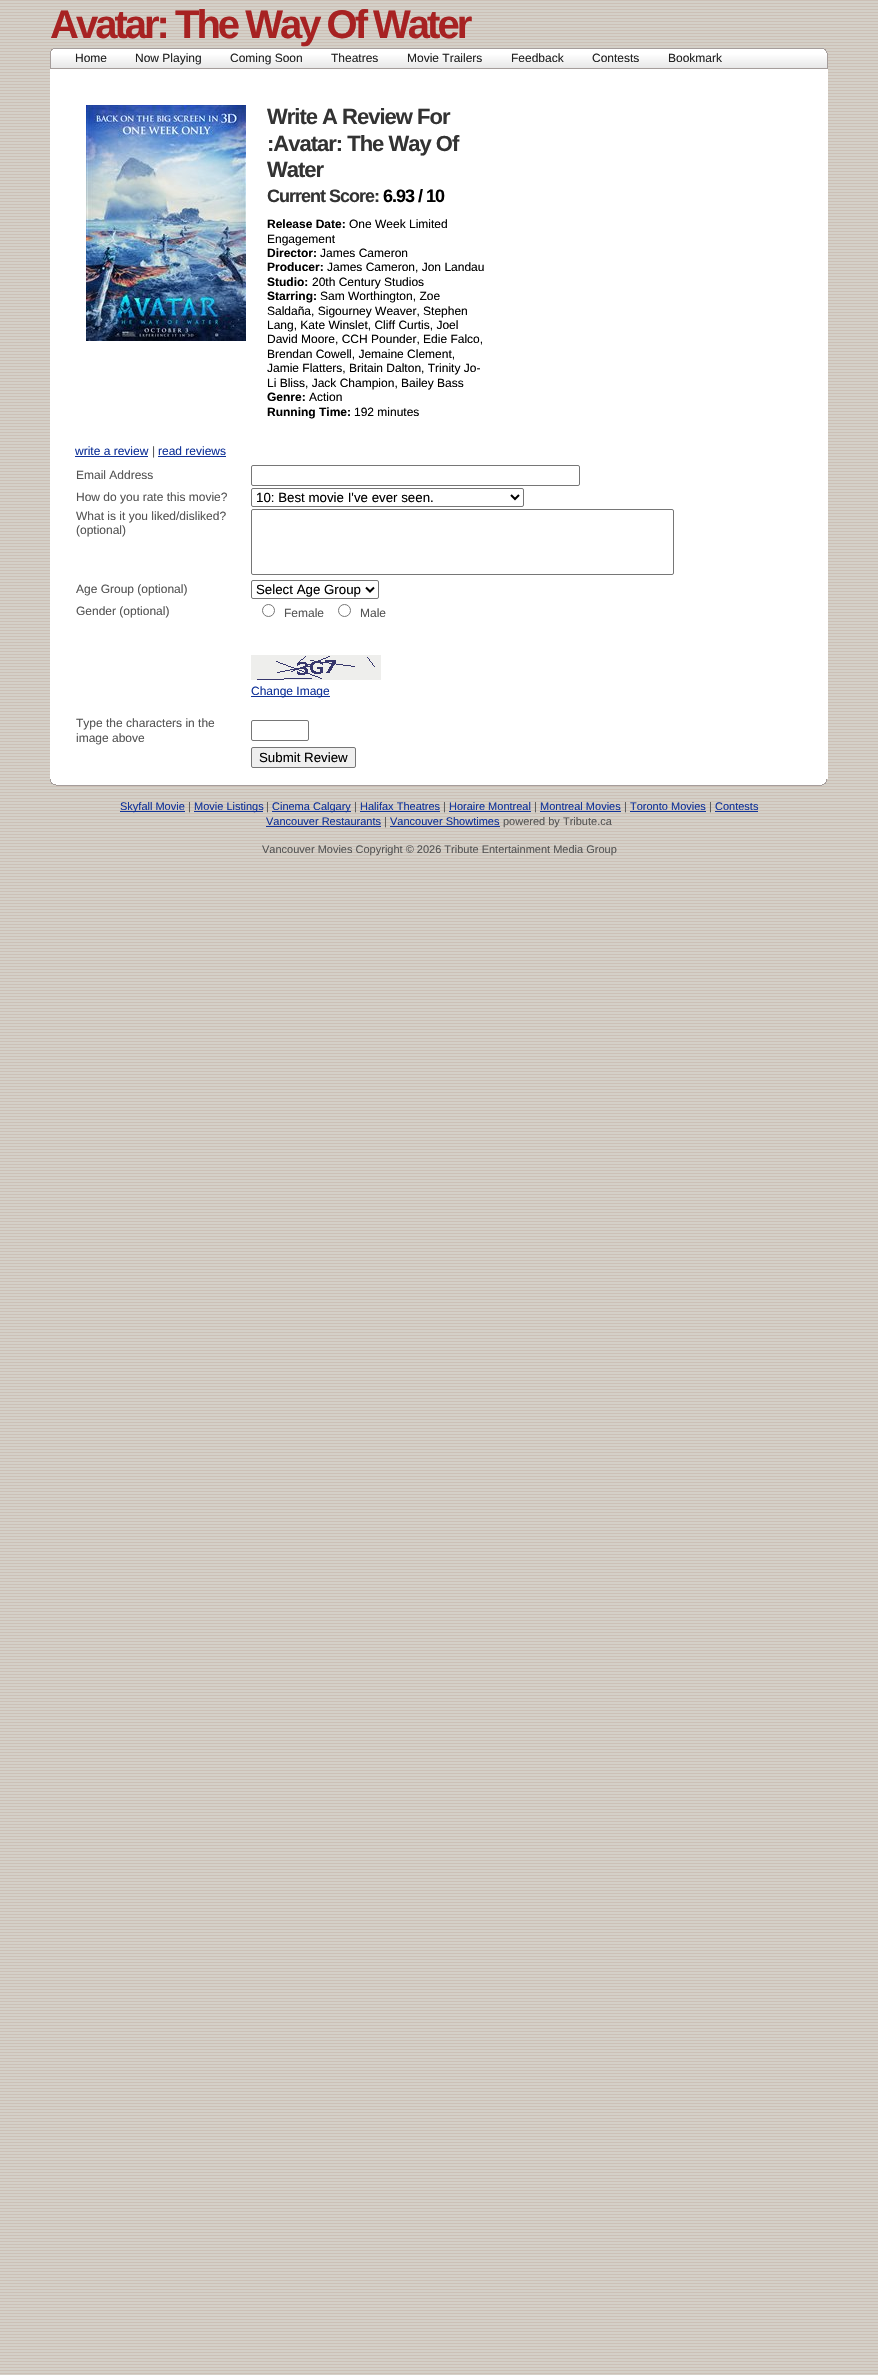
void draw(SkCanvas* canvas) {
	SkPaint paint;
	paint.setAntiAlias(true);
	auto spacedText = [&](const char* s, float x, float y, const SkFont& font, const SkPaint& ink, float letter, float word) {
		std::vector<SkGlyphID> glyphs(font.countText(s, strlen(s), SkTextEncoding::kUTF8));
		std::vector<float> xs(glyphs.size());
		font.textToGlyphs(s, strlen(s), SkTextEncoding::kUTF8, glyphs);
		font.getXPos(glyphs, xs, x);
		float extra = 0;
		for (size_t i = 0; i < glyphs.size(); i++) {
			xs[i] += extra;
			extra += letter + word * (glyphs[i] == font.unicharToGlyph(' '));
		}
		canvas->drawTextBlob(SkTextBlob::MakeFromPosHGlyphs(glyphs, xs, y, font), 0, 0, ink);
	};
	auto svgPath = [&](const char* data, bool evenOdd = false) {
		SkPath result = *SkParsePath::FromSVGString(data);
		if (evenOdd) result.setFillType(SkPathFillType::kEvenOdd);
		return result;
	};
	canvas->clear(0xffd4d0c8);
	canvas->drawImageRect(SkImages::DeferredFromEncodedData(SkData::MakeFromFileName("img1.png")), SkRect::MakeXYWH(0, 0, 878, 2374), SkSamplingOptions());
	SkFont f1(fontMgr->matchFamilyStyle("Liberation Sans", SkFontStyle::Bold()), 40);
	f1.setSubpixel(true);
	paint.setColor(0xffa72222);
	spacedText("Avatar: The Way Of Water", 50, 38, f1, paint, -3, 0);
	canvas->drawImageRect(SkImages::DeferredFromEncodedData(SkData::MakeFromFileName("img2.png")), SkRect::MakeXYWH(50, 48, 778, 20), SkSamplingOptions());
	paint.setColor(0xffa59d9b);
	canvas->drawRect(SkRect::MakeXYWH(50, 68, 778, 1), paint);
	SkFont f2(fontMgr->matchFamilyStyle("Liberation Sans", SkFontStyle::Normal()), 12);
	f2.setSubpixel(true);
	paint.setColor(0xff222222);
	canvas->drawString("Home", 75, 62, f2, paint);
	canvas->drawString("Now Playing", 135, 62, f2, paint);
	canvas->drawString("Coming Soon", 230, 62, f2, paint);
	canvas->drawString("Theatres", 331, 62, f2, paint);
	canvas->drawString("Movie Trailers", 407, 62, f2, paint);
	canvas->drawString("Feedback", 511, 62, f2, paint);
	canvas->drawString("Contests", 592, 62, f2, paint);
	canvas->drawString("Bookmark", 668, 62, f2, paint);
	paint.setColor(0xffffffff);
	canvas->drawRect(SkRect::MakeXYWH(50, 69, 778, 710), paint);
	canvas->drawImageRect(SkImages::DeferredFromEncodedData(SkData::MakeFromFileName("img3.png")), SkRect::MakeXYWH(86, 105, 160, 236), SkSamplingOptions());
	SkFont f3(fontMgr->matchFamilyStyle("Liberation Sans", SkFontStyle::Bold()), 22);
	f3.setSubpixel(true);
	paint.setColor(0xff333333);
	spacedText("Write A Review For", 267, 124, f3, paint, -1, 0);
	spacedText(":Avatar: The Way Of", 267, 151, f3, paint, -1, 0);
	spacedText("Water", 267, 177, f3, paint, -1, 0);
	SkFont f4(fontMgr->matchFamilyStyle("Liberation Sans", SkFontStyle::Bold()), 18);
	f4.setSubpixel(true);
	spacedText("Current Score:", 267, 202, f4, paint, -1, 0);
	paint.setColor(0xff000000);
	spacedText("6.93 / 10", 383, 202, f4, paint, -1, 0);
	SkFont f5(fontMgr->matchFamilyStyle("Liberation Sans", SkFontStyle::Bold()), 12);
	f5.setSubpixel(true);
	canvas->drawString("Release Date:", 267, 228, f5, paint);
	canvas->drawString("One Week Limited", 349, 228, f2, paint);
	canvas->drawString("Engagement", 267, 243, f2, paint);
	canvas->drawString("Director:", 267, 257, f5, paint);
	canvas->drawString("James Cameron", 320, 257, f2, paint);
	canvas->drawString("Producer:", 267, 271, f5, paint);
	canvas->drawString("James Cameron, Jon Landau", 327, 271, f2, paint);
	canvas->drawString("Studio:", 267, 286, f5, paint);
	canvas->drawString("20th Century Studios", 312, 286, f2, paint);
	canvas->drawString("Starring:", 267, 300, f5, paint);
	canvas->drawString("Sam Worthington, Zoe", 320, 300, f2, paint);
	canvas->drawString("Saldaña, Sigourney Weaver, Stephen", 267, 315, f2, paint);
	canvas->drawString("Lang, Kate Winslet, Cliff Curtis, Joel", 267, 329, f2, paint);
	canvas->drawString("David Moore, CCH Pounder, Edie Falco,", 267, 343, f2, paint);
	canvas->drawString("Brendan Cowell, Jemaine Clement,", 267, 358, f2, paint);
	canvas->drawString("Jamie Flatters, Britain Dalton, Trinity Jo-", 267, 372, f2, paint);
	canvas->drawString("Li Bliss, Jack Champion, Bailey Bass", 267, 387, f2, paint);
	canvas->drawString("Genre:", 267, 401, f5, paint);
	canvas->drawString("Action", 309, 401, f2, paint);
	canvas->drawString("Running Time:", 267, 416, f5, paint);
	canvas->drawString("192 minutes", 354, 416, f2, paint);
	paint.setColor(0xff113399);
	canvas->drawString("write a review", 75, 455, f2, paint);
	canvas->drawRect(SkRect::MakeXYWH(75, 456, 73, 1), paint);
	paint.setColor(0xff555555);
	canvas->drawString("|", 152, 455, f2, paint);
	paint.setColor(0xff113399);
	canvas->drawString("read reviews", 158, 455, f2, paint);
	canvas->drawRect(SkRect::MakeXYWH(158, 456, 68, 1), paint);
	paint.setColor(0xff555555);
	canvas->drawString("Email Address", 76, 479, f2, paint);
	paint.setStroke(true);
	paint.setStrokeWidth(1);
	paint.setColor(0xff767676);
	canvas->drawRoundRect(SkRect::MakeXYWH(251.5, 465.5, 328, 20), 1.5, 1.5, paint);
	paint.setStroke(false);
	paint.setColor(0xff555555);
	canvas->drawString("How do you rate this movie?", 76, 501, f2, paint);
	paint.setStroke(true);
	paint.setColor(0xff767676);
	canvas->drawRoundRect(SkRect::MakeXYWH(251.5, 488.5, 272, 18), 1.5, 1.5, paint);
	paint.setStrokeWidth(2);
	paint.setColor(0xff000000);
	canvas->drawPath(svgPath("M511 495L515 499L519 495"), paint);
	SkFont f6(fontMgr->matchFamilyStyle("Liberation Sans", SkFontStyle::Normal()), 13.3);
	f6.setSubpixel(true);
	paint.setStroke(false);
	canvas->drawString("10: Best movie I've ever seen.", 256, 502, f6, paint);
	paint.setColor(0xff555555);
	canvas->drawString("What is it you liked/disliked?", 76, 520, f2, paint);
	canvas->drawString("(optional)", 76, 534, f2, paint);
	paint.setStroke(true);
	paint.setStrokeWidth(1);
	paint.setColor(0xff767676);
	canvas->drawRoundRect(SkRect::MakeXYWH(251.5, 509.5, 422, 65), 1.5, 1.5, paint);
	paint.setStroke(false);
	paint.setColor(0xff555555);
	canvas->drawString("Age Group (optional)", 76, 593, f2, paint);
	paint.setStroke(true);
	paint.setColor(0xff767676);
	canvas->drawRoundRect(SkRect::MakeXYWH(251.5, 580.5, 127, 18), 1.5, 1.5, paint);
	paint.setStrokeWidth(2);
	paint.setColor(0xff000000);
	canvas->drawPath(svgPath("M366 587.5L370 591.5L374 587.5"), paint);
	paint.setStroke(false);
	canvas->drawString("Select Age Group", 256, 594, f6, paint);
	paint.setColor(0xff555555);
	canvas->drawString("Gender (optional)", 76, 615, f2, paint);
	paint.setStroke(true);
	paint.setStrokeWidth(1);
	paint.setColor(0xff767676);
	canvas->drawCircle(268.5, 610.5, 6, paint);
	paint.setStroke(false);
	paint.setColor(0xff555555);
	canvas->drawString("Female", 284, 617, f2, paint);
	paint.setStroke(true);
	paint.setColor(0xff767676);
	canvas->drawCircle(344.5, 610.5, 6, paint);
	paint.setStroke(false);
	paint.setColor(0xff555555);
	canvas->drawString("Male", 360, 617, f2, paint);
	canvas->drawImageRect(SkImages::DeferredFromEncodedData(SkData::MakeFromFileName("img4.png")), SkRect::MakeXYWH(251, 655, 130, 25), SkSamplingOptions());
	paint.setColor(0xff113399);
	canvas->drawRect(SkRect::MakeXYWH(251, 696, 79, 1), paint);
	canvas->drawString("Change Image", 251, 695, f2, paint);
	paint.setColor(0xff555555);
	canvas->drawString("Type the characters in the", 76, 727, f2, paint);
	canvas->drawString("image above", 76, 742, f2, paint);
	paint.setStroke(true);
	paint.setColor(0xff767676);
	canvas->drawRoundRect(SkRect::MakeXYWH(251.5, 720.5, 57, 20), 1.5, 1.5, paint);
	paint.setStroke(false);
	paint.setColor(0xffefefef);
	canvas->drawRoundRect(SkRect::MakeXYWH(251.5, 747.5, 104, 20), 1.5, 1.5, paint);
	paint.setStroke(true);
	paint.setColor(0xff767676);
	canvas->drawRoundRect(SkRect::MakeXYWH(251.5, 747.5, 104, 20), 1.5, 1.5, paint);
	paint.setStroke(false);
	paint.setColor(0xff000000);
	canvas->drawString("Submit Review", 259, 762, f6, paint);
	canvas->drawImageRect(SkImages::DeferredFromEncodedData(SkData::MakeFromFileName("img5.png")), SkRect::MakeXYWH(50, 779, 777, 7), SkSamplingOptions());
	paint.setColor(0xff113399);
	canvas->drawRect(SkRect::MakeXYWH(120, 811, 65, 1), paint);
	SkFont f7(fontMgr->matchFamilyStyle("Liberation Sans", SkFontStyle::Normal()), 11);
	f7.setSubpixel(true);
	canvas->drawString("Skyfall Movie", 120, 810, f7, paint);
	paint.setColor(0xff555555);
	canvas->drawString("|", 188, 810, f7, paint);
	paint.setColor(0xff113399);
	canvas->drawRect(SkRect::MakeXYWH(194, 811, 69, 1), paint);
	canvas->drawString("Movie Listings", 194, 810, f7, paint);
	paint.setColor(0xff555555);
	canvas->drawString("|", 266, 810, f7, paint);
	paint.setColor(0xff113399);
	canvas->drawRect(SkRect::MakeXYWH(272, 811, 79, 1), paint);
	canvas->drawString("Cinema Calgary", 272, 810, f7, paint);
	paint.setColor(0xff555555);
	canvas->drawString("|", 354, 810, f7, paint);
	paint.setColor(0xff113399);
	canvas->drawString("Halifax Theatres", 360, 810, f7, paint);
	canvas->drawRect(SkRect::MakeXYWH(360, 811, 80, 1), paint);
	paint.setColor(0xff555555);
	canvas->drawString("|", 443, 810, f7, paint);
	paint.setColor(0xff113399);
	canvas->drawString("Horaire Montreal", 449, 810, f7, paint);
	canvas->drawRect(SkRect::MakeXYWH(449, 811, 82, 1), paint);
	paint.setColor(0xff555555);
	canvas->drawString("|", 534, 810, f7, paint);
	paint.setColor(0xff113399);
	canvas->drawString("Montreal Movies", 540, 810, f7, paint);
	canvas->drawRect(SkRect::MakeXYWH(540, 811, 81, 1), paint);
	paint.setColor(0xff555555);
	canvas->drawString("|", 624, 810, f7, paint);
	paint.setColor(0xff113399);
	canvas->drawString("Toronto Movies", 630, 810, f7, paint);
	canvas->drawRect(SkRect::MakeXYWH(630, 811, 76, 1), paint);
	paint.setColor(0xff555555);
	canvas->drawString("|", 709, 810, f7, paint);
	paint.setColor(0xff113399);
	canvas->drawString("Contests", 715, 810, f7, paint);
	canvas->drawRect(SkRect::MakeXYWH(715, 811, 43, 1), paint);
	canvas->drawString("Vancouver Restaurants", 266, 825, f7, paint);
	canvas->drawRect(SkRect::MakeXYWH(266, 826, 115, 1), paint);
	paint.setColor(0xff555555);
	canvas->drawString("|", 384, 825, f7, paint);
	paint.setColor(0xff113399);
	canvas->drawString("Vancouver Showtimes", 390, 825, f7, paint);
	canvas->drawRect(SkRect::MakeXYWH(390, 826, 110, 1), paint);
	paint.setColor(0xff555555);
	canvas->drawString("powered by Tribute.ca", 503, 825, f7, paint);
	canvas->drawString("Vancouver Movies Copyright © 2026 Tribute Entertainment Media Group", 262, 853, f7, paint);
}
